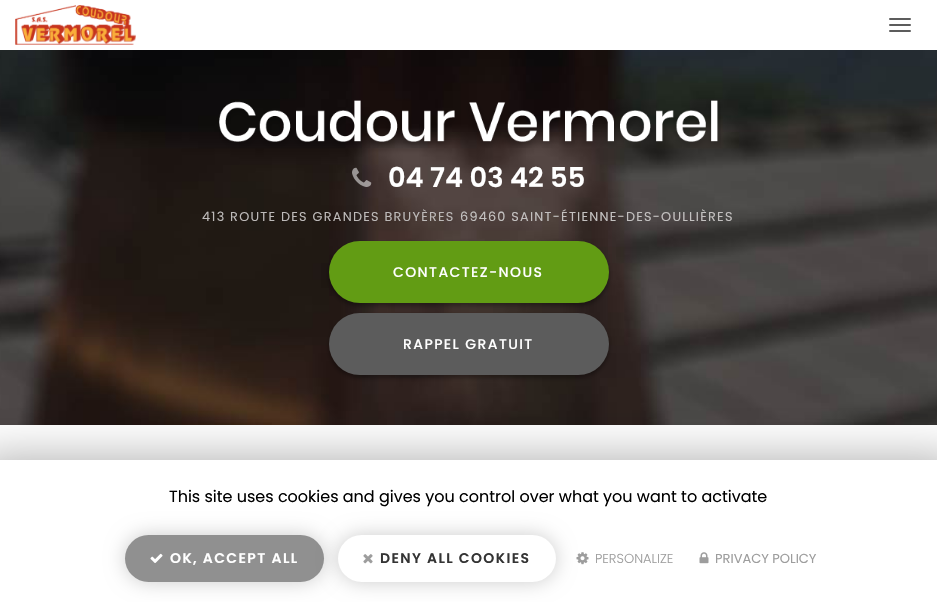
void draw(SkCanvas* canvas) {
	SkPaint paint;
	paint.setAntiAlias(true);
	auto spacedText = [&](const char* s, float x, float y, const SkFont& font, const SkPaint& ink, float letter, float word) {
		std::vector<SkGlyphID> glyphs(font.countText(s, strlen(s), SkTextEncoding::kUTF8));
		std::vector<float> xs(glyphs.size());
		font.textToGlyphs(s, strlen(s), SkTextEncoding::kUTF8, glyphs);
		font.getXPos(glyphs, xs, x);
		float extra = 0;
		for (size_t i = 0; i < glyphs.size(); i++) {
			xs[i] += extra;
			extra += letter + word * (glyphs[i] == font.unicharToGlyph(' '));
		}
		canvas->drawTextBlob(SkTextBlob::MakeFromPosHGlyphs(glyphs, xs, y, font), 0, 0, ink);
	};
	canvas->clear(0xffffffff);
	canvas->drawImageRect(SkImages::DeferredFromEncodedData(SkData::MakeFromFileName("img1.png")), SkRect::MakeXYWH(15, 5, 121, 40), SkSamplingOptions());
	paint.setColor(0xff5c5c5c);
	canvas->drawRoundRect(SkRect::MakeXYWH(889, 18, 22, 2), 1, 1, paint);
	canvas->drawRoundRect(SkRect::MakeXYWH(889, 24, 22, 2), 1, 1, paint);
	canvas->drawRoundRect(SkRect::MakeXYWH(889, 30, 22, 2), 1, 1, paint);
	canvas->drawImageRect(SkImages::DeferredFromEncodedData(SkData::MakeFromFileName("img2.png")), SkRect::MakeXYWH(0, 50, 937, 375), SkSamplingOptions());
	canvas->drawImageRect(SkImages::DeferredFromEncodedData(SkData::MakeFromFileName("img3.png")), SkRect::MakeXYWH(219, 100, 502, 48), SkSamplingOptions());
	canvas->drawImageRect(SkImages::DeferredFromEncodedData(SkData::MakeFromFileName("img4.png")), SkRect::MakeXYWH(352, 167, 20, 20), SkSamplingOptions());
	SkFont f1(fontMgr->matchFamilyStyle("Poppins", SkFontStyle(600, SkFontStyle::kNormal_Width, SkFontStyle::kUpright_Slant)), 27.25);
	f1.setSubpixel(true);
	paint.setColor(0xffffffff);
	canvas->drawString("04 74 03 42 55", 388, 187, f1, paint);
	SkFont f2(fontMgr->matchFamilyStyle("Poppins", SkFontStyle::Normal()), 12.8);
	f2.setSubpixel(true);
	paint.setColor(0xffbdbab9);
	spacedText("413 ROUTE DES GRANDES BRUYÈRES", 202, 221, f2, paint, 1.25, 0);
	paint.setColor(0xffc3c1c0);
	spacedText("69460 SAINT-ÉTIENNE-DES-OULLIÈRES", 460, 221, f2, paint, 1.25, 0);
	paint.setColor(0x59000000);
	paint.setMaskFilter(SkMaskFilter::MakeBlur(kNormal_SkBlurStyle, 2));
	canvas->drawRoundRect(SkRect::MakeXYWH(329, 244, 280, 62), 31, 31, paint);
	paint.setMaskFilter(nullptr);
	paint.setColor(0xff629c14);
	canvas->drawRoundRect(SkRect::MakeXYWH(329, 241, 280, 62), 31, 31, paint);
	SkFont f3(fontMgr->matchFamilyStyle("Poppins", SkFontStyle(500, SkFontStyle::kNormal_Width, SkFontStyle::kUpright_Slant)), 14);
	f3.setSubpixel(true);
	paint.setColor(0xffffffff);
	spacedText("CONTACTEZ-NOUS", 393, 277, f3, paint, 1.4, 0);
	paint.setColor(0x59000000);
	paint.setMaskFilter(SkMaskFilter::MakeBlur(kNormal_SkBlurStyle, 2));
	canvas->drawRoundRect(SkRect::MakeXYWH(329, 316, 280, 62), 31, 31, paint);
	paint.setMaskFilter(nullptr);
	paint.setColor(0xff5c5c5c);
	canvas->drawRoundRect(SkRect::MakeXYWH(329, 313, 280, 62), 31, 31, paint);
	paint.setColor(0xffffffff);
	spacedText("RAPPEL GRATUIT", 403, 349, f3, paint, 1.4, 0);
	paint.setColor(0x57000000);
	paint.setMaskFilter(SkMaskFilter::MakeBlur(kNormal_SkBlurStyle, 25));
	canvas->drawRect(SkRect::MakeXYWH(-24, 460, 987, 142), paint);
	paint.setMaskFilter(nullptr);
	paint.setColor(0xffffffff);
	canvas->drawRect(SkRect::MakeXYWH(0, 460, 937, 142), paint);
	SkFont f4(fontMgr->matchFamilyStyle("Poppins", SkFontStyle::Normal()), 16);
	f4.setSubpixel(true);
	paint.setColor(0xff000000);
	canvas->drawString("This site uses cookies and gives you control over what you want to activate", 169, 502, f4, paint);
	paint.setColor(0x33000000);
	paint.setMaskFilter(SkMaskFilter::MakeBlur(kNormal_SkBlurStyle, 10));
	canvas->drawRoundRect(SkRect::MakeXYWH(125, 535, 199, 47), 23.5, 23.5, paint);
	paint.setMaskFilter(nullptr);
	paint.setColor(0xff909090);
	canvas->drawRoundRect(SkRect::MakeXYWH(125, 535, 199, 47), 23.5, 23.5, paint);
	canvas->drawImageRect(SkImages::DeferredFromEncodedData(SkData::MakeFromFileName("img5.png")), SkRect::MakeXYWH(150, 553, 13, 10), SkSamplingOptions());
	SkFont f5(fontMgr->matchFamilyStyle("Poppins", SkFontStyle(600, SkFontStyle::kNormal_Width, SkFontStyle::kUpright_Slant)), 14);
	f5.setSubpixel(true);
	paint.setColor(0xffffffff);
	spacedText("OK, ACCEPT ALL", 170, 563, f5, paint, 1.4, 0);
	canvas->drawImageRect(SkImages::DeferredFromEncodedData(SkData::MakeFromFileName("img7.png")), SkRect::MakeXYWH(576, 552, 13, 13), SkSamplingOptions());
	paint.setColor(0x33000000);
	paint.setMaskFilter(SkMaskFilter::MakeBlur(kNormal_SkBlurStyle, 10));
	canvas->drawRoundRect(SkRect::MakeXYWH(338, 535, 218, 47), 23.5, 23.5, paint);
	paint.setMaskFilter(nullptr);
	paint.setColor(0xffffffff);
	canvas->drawRoundRect(SkRect::MakeXYWH(338, 535, 218, 47), 23.5, 23.5, paint);
	canvas->drawImageRect(SkImages::DeferredFromEncodedData(SkData::MakeFromFileName("img6.png")), SkRect::MakeXYWH(363, 554, 10, 10), SkSamplingOptions());
	paint.setColor(0xff343434);
	spacedText("DENY ALL COOKIES", 380, 563, f5, paint, 1.4, 0);
	SkFont f6(fontMgr->matchFamilyStyle("Poppins", SkFontStyle(300, SkFontStyle::kNormal_Width, SkFontStyle::kUpright_Slant)), 13);
	f6.setSubpixel(true);
	paint.setColor(0xff9d9d9d);
	canvas->drawString("PERSONALIZE", 595, 563, f6, paint);
	canvas->drawImageRect(SkImages::DeferredFromEncodedData(SkData::MakeFromFileName("img8.png")), SkRect::MakeXYWH(699, 552, 10, 12), SkSamplingOptions());
	SkFont f7(fontMgr->matchFamilyStyle("Poppins", SkFontStyle::Normal()), 13);
	f7.setSubpixel(true);
	canvas->drawString("PRIVACY POLICY", 715, 563, f7, paint);
}
